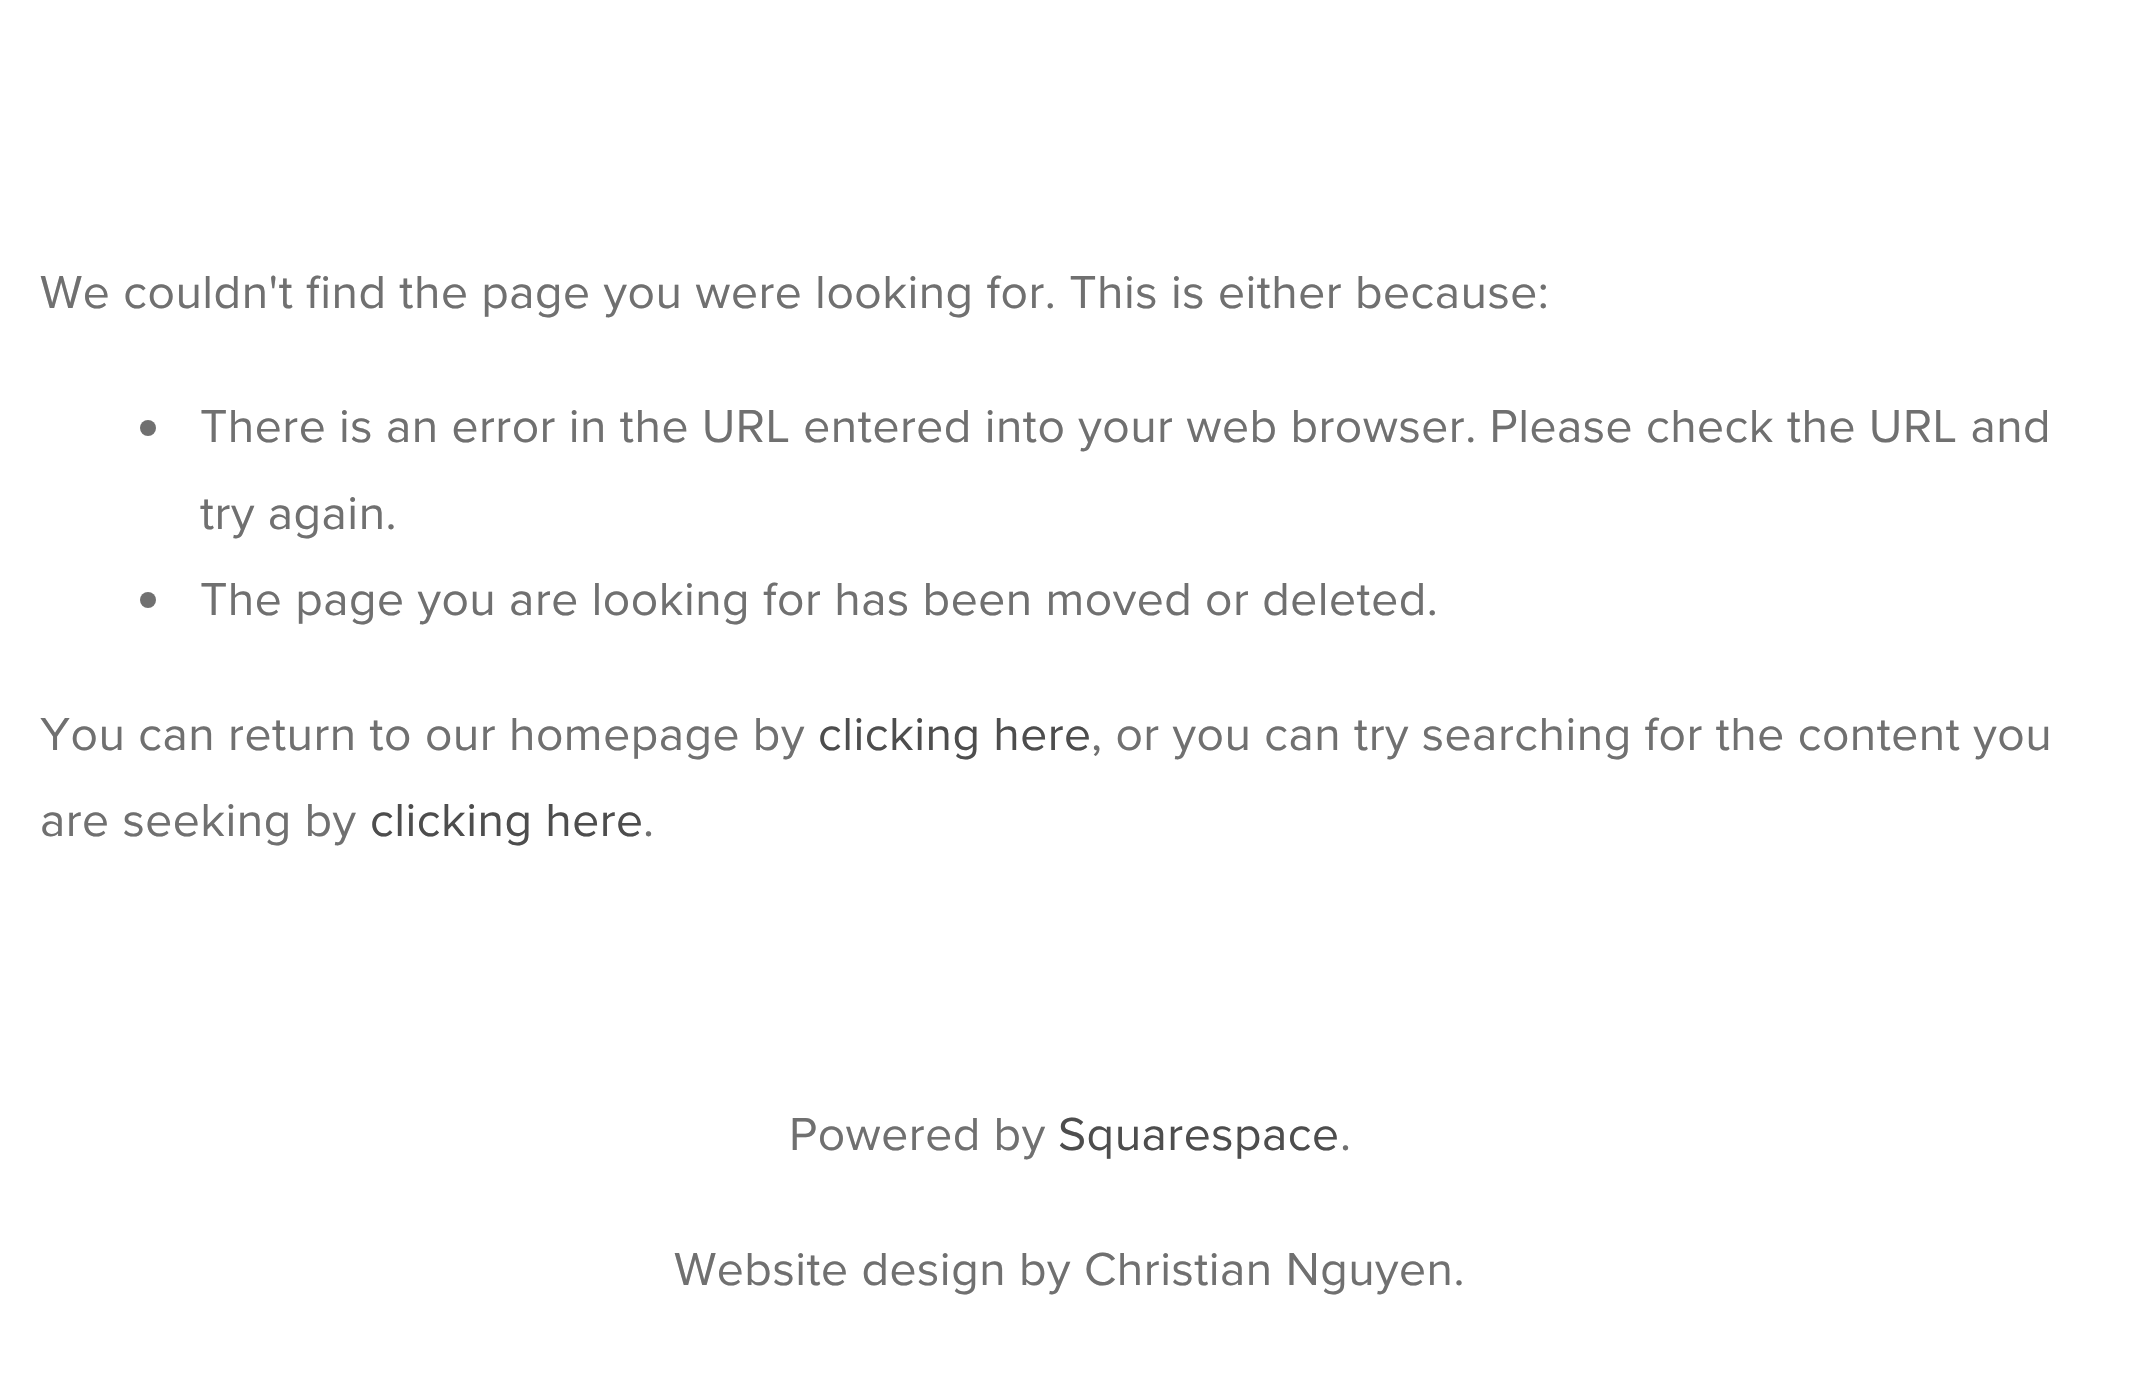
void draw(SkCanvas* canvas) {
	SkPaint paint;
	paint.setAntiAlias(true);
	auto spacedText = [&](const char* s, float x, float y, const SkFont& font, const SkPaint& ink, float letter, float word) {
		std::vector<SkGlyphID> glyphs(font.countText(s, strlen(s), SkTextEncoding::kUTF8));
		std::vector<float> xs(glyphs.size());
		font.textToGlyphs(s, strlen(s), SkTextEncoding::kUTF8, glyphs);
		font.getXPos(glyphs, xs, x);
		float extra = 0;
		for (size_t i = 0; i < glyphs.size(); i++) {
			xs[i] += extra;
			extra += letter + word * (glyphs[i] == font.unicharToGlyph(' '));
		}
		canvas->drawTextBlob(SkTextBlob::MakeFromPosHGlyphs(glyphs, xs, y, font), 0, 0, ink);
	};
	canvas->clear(0xffffffff);
	SkFont f1(fontMgr->matchFamilyStyle("Proxima Nova", SkFontStyle::Normal()), 48);
	f1.setSubpixel(true);
	paint.setColor(0xff707070);
	spacedText("We couldn't find the page you were looking for. This is either because:", 40, 308, f1, paint, 0.48, 0);
	canvas->drawCircle(148, 428, 8, paint);
	spacedText("There is an error in the URL entered into your web browser. Please check the URL and", 200, 442, f1, paint, 0.48, 0);
	spacedText("try again.", 200, 529, f1, paint, 0.48, 0);
	canvas->drawCircle(148, 600, 8, paint);
	spacedText("The page you are looking for has been moved or deleted.", 200, 615, f1, paint, 0.48, 0);
	spacedText("You can return to our homepage by", 40, 750, f1, paint, 0.48, 0);
	paint.setColor(0xff4d4d4d);
	spacedText("clicking here", 818, 750, f1, paint, 0.48, 0);
	paint.setColor(0xff707070);
	spacedText(", or you can try searching for the content you", 1091, 750, f1, paint, 0.48, 0);
	spacedText("are seeking by", 40, 836, f1, paint, 0.48, 0);
	paint.setColor(0xff4d4d4d);
	spacedText("clicking here", 370, 836, f1, paint, 0.48, 0);
	paint.setColor(0xff707070);
	spacedText(".", 643, 836, f1, paint, 0.48, 0);
	spacedText("Powered by", 789, 1150, f1, paint, 0.48, 0);
	paint.setColor(0xff4d4d4d);
	spacedText("Squarespace", 1058, 1150, f1, paint, 0.48, 0);
	paint.setColor(0xff707070);
	spacedText(".", 1340, 1150, f1, paint, 0.48, 0);
	spacedText("Website design by Christian Nguyen.", 674, 1285, f1, paint, 0.48, 0);
}
